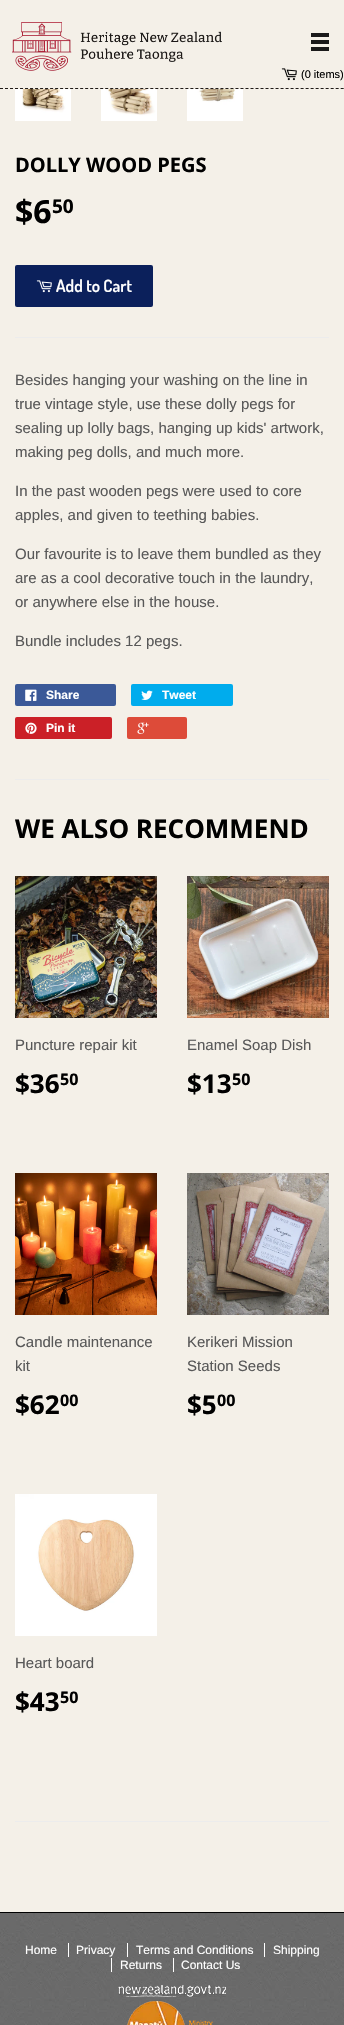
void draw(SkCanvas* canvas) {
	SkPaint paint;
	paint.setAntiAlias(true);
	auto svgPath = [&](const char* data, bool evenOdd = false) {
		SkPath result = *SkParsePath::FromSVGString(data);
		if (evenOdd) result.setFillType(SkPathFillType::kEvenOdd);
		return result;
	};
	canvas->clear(0xfff4f0e8);
	paint.setStroke(true);
	paint.setStrokeWidth(1);
	paint.setColor(0xff1f1a17);
	paint.setPathEffect(SkDashPathEffect::Make({{3, 2.01f}}, 0));
	canvas->drawPath(svgPath("M0 88.5H344"), paint);
	paint.setPathEffect(nullptr);
	canvas->drawImageRect(SkImages::DeferredFromEncodedData(SkData::MakeFromFileName("img1.png")), SkRect::MakeXYWH(12, 22, 210, 49), SkSamplingOptions());
	canvas->drawImageRect(SkImages::DeferredFromEncodedData(SkData::MakeFromFileName("img2.png")), SkRect::MakeXYWH(311, 33, 18, 18), SkSamplingOptions());
	canvas->drawImageRect(SkImages::DeferredFromEncodedData(SkData::MakeFromFileName("img3.png")), SkRect::MakeXYWH(281, 68, 16, 13), SkSamplingOptions());
	SkFont f1(fontMgr->matchFamilyStyle("Liberation Sans", SkFontStyle::Normal()), 11);
	f1.setSubpixel(true);
	paint.setStroke(false);
	paint.setColor(0xff000000);
	canvas->drawString("(0 items)", 301, 78, f1, paint);
	canvas->drawImageRect(SkImages::DeferredFromEncodedData(SkData::MakeFromFileName("img4.png")), SkRect::MakeXYWH(15, 89, 56, 32), SkSamplingOptions());
	canvas->drawImageRect(SkImages::DeferredFromEncodedData(SkData::MakeFromFileName("img5.png")), SkRect::MakeXYWH(101, 89, 56, 32), SkSamplingOptions());
	canvas->drawImageRect(SkImages::DeferredFromEncodedData(SkData::MakeFromFileName("img6.png")), SkRect::MakeXYWH(187, 89, 56, 32), SkSamplingOptions());
	SkFont f2(fontMgr->matchFamilyStyle("Open Sans", SkFontStyle::Bold()), 20);
	f2.setSubpixel(true);
	canvas->drawString("DOLLY WOOD PEGS", 15, 172, f2, paint);
	SkFont f3(fontMgr->matchFamilyStyle("Open Sans", SkFontStyle::Bold()), 32);
	f3.setSubpixel(true);
	canvas->drawString("$6", 15, 223, f3, paint);
	SkFont f4(fontMgr->matchFamilyStyle("Open Sans", SkFontStyle::Bold()), 19);
	f4.setSubpixel(true);
	canvas->drawString("50", 52, 213, f4, paint);
	paint.setColor(0xff0b205b);
	canvas->drawRoundRect(SkRect::MakeXYWH(15, 265, 138, 42), 2, 2, paint);
	canvas->drawImageRect(SkImages::DeferredFromEncodedData(SkData::MakeFromFileName("img7.png")), SkRect::MakeXYWH(36, 280, 16, 13), SkSamplingOptions());
	SkFont f5(fontMgr->matchFamilyStyle("Dosis", SkFontStyle(600, SkFontStyle::kNormal_Width, SkFontStyle::kUpright_Slant)), 17);
	f5.setSubpixel(true);
	paint.setColor(0xffffffff);
	canvas->drawString("Add to Cart", 56, 292, f5, paint);
	paint.setColor(0xffececec);
	canvas->drawRect(SkRect::MakeXYWH(15, 337, 314, 1), paint);
	SkFont f6(fontMgr->matchFamilyStyle("Liberation Sans", SkFontStyle::Normal()), 15);
	f6.setSubpixel(true);
	paint.setColor(0xff585858);
	canvas->drawString("Besides hanging your washing on the line in", 15, 385, f6, paint);
	canvas->drawString("true vintage style, use these dolly pegs for", 15, 409, f6, paint);
	canvas->drawString("sealing up lolly bags, hanging up kids' artwork,", 15, 433, f6, paint);
	canvas->drawString("making peg dolls, and much more.", 15, 457, f6, paint);
	canvas->drawString("In the past wooden pegs were used to core", 15, 496, f6, paint);
	canvas->drawString("apples, and given to teething babies.", 15, 520, f6, paint);
	canvas->drawString("Our favourite is to leave them bundled as they", 15, 559, f6, paint);
	canvas->drawString("are as a cool decorative touch in the laundry,", 15, 583, f6, paint);
	canvas->drawString("or anywhere else in the house.", 15, 607, f6, paint);
	canvas->drawString("Bundle includes 12 pegs.", 15, 646, f6, paint);
	paint.setColor(0xff3b5998);
	canvas->drawRoundRect(SkRect::MakeXYWH(15, 684, 101, 22), 2, 2, paint);
	canvas->drawImageRect(SkImages::DeferredFromEncodedData(SkData::MakeFromFileName("img8.png")), SkRect::MakeXYWH(25, 689, 12, 12), SkSamplingOptions());
	SkFont f7(fontMgr->matchFamilyStyle("Liberation Sans", SkFontStyle::Bold()), 12);
	f7.setSubpixel(true);
	paint.setColor(0xffffffff);
	canvas->drawString("Share", 46, 699, f7, paint);
	paint.setColor(0xff00aced);
	canvas->drawRoundRect(SkRect::MakeXYWH(131, 684, 102, 22), 2, 2, paint);
	canvas->drawImageRect(SkImages::DeferredFromEncodedData(SkData::MakeFromFileName("img9.png")), SkRect::MakeXYWH(141, 690, 12, 10), SkSamplingOptions());
	paint.setColor(0xffffffff);
	canvas->drawString("Tweet", 162, 699, f7, paint);
	paint.setColor(0xffcb2027);
	canvas->drawRoundRect(SkRect::MakeXYWH(15, 717, 97, 22), 2, 2, paint);
	canvas->drawImageRect(SkImages::DeferredFromEncodedData(SkData::MakeFromFileName("img10.png")), SkRect::MakeXYWH(25, 722, 12, 12), SkSamplingOptions());
	paint.setColor(0xffffffff);
	canvas->drawString("Pin it", 46, 732, f7, paint);
	paint.setColor(0xffdd4b39);
	canvas->drawRoundRect(SkRect::MakeXYWH(127, 717, 60, 22), 2, 2, paint);
	canvas->drawImageRect(SkImages::DeferredFromEncodedData(SkData::MakeFromFileName("img11.png")), SkRect::MakeXYWH(137, 722, 12, 12), SkSamplingOptions());
	paint.setColor(0xffececec);
	canvas->drawRect(SkRect::MakeXYWH(15, 779, 314, 1), paint);
	SkFont f8(fontMgr->matchFamilyStyle("Open Sans", SkFontStyle::Bold()), 26);
	f8.setSubpixel(true);
	paint.setColor(0xff000000);
	canvas->drawString("WE ALSO RECOMMEND", 15, 838, f8, paint);
	canvas->drawImageRect(SkImages::DeferredFromEncodedData(SkData::MakeFromFileName("img12.png")), SkRect::MakeXYWH(15, 876, 142, 142), SkSamplingOptions());
	paint.setColor(0xff585858);
	canvas->drawString("Puncture repair kit", 15, 1050, f6, paint);
	paint.setColor(0xff000000);
	canvas->drawString("$36", 15, 1093, f8, paint);
	SkFont f9(fontMgr->matchFamilyStyle("Open Sans", SkFontStyle::Bold()), 16);
	f9.setSubpixel(true);
	canvas->drawString("50", 60, 1085, f9, paint);
	canvas->drawImageRect(SkImages::DeferredFromEncodedData(SkData::MakeFromFileName("img13.png")), SkRect::MakeXYWH(187, 876, 142, 142), SkSamplingOptions());
	paint.setColor(0xff585858);
	canvas->drawString("Enamel Soap Dish", 187, 1050, f6, paint);
	paint.setColor(0xff000000);
	canvas->drawString("$13", 187, 1093, f8, paint);
	canvas->drawString("50", 232, 1085, f9, paint);
	canvas->drawImageRect(SkImages::DeferredFromEncodedData(SkData::MakeFromFileName("img14.png")), SkRect::MakeXYWH(15, 1173, 142, 142), SkSamplingOptions());
	paint.setColor(0xff585858);
	canvas->drawString("Candle maintenance", 15, 1347, f6, paint);
	canvas->drawString("kit", 15, 1371, f6, paint);
	paint.setColor(0xff000000);
	canvas->drawString("$62", 15, 1414, f8, paint);
	canvas->drawString("00", 60, 1406, f9, paint);
	canvas->drawImageRect(SkImages::DeferredFromEncodedData(SkData::MakeFromFileName("img15.png")), SkRect::MakeXYWH(187, 1173, 142, 142), SkSamplingOptions());
	paint.setColor(0xff585858);
	canvas->drawString("Kerikeri Mission", 187, 1347, f6, paint);
	canvas->drawString("Station Seeds", 187, 1371, f6, paint);
	paint.setColor(0xff000000);
	canvas->drawString("$5", 187, 1414, f8, paint);
	canvas->drawString("00", 217, 1406, f9, paint);
	canvas->drawImageRect(SkImages::DeferredFromEncodedData(SkData::MakeFromFileName("img16.png")), SkRect::MakeXYWH(15, 1494, 142, 142), SkSamplingOptions());
	paint.setColor(0xff585858);
	canvas->drawString("Heart board", 15, 1668, f6, paint);
	paint.setColor(0xff000000);
	canvas->drawString("$43", 15, 1711, f8, paint);
	canvas->drawString("50", 60, 1703, f9, paint);
	paint.setColor(0xffececec);
	canvas->drawRect(SkRect::MakeXYWH(15, 1821, 314, 1), paint);
	canvas->drawImageRect(SkImages::DeferredFromEncodedData(SkData::MakeFromFileName("img17.png")), SkRect::MakeXYWH(0, 1913, 344, 112), SkSamplingOptions());
	paint.setColor(0xff000000);
	canvas->drawRect(SkRect::MakeXYWH(0, 1912, 344, 1), paint);
	SkFont f10(fontMgr->matchFamilyStyle("Liberation Sans", SkFontStyle::Normal()), 12);
	f10.setSubpixel(true);
	paint.setColor(0xffffffff);
	canvas->drawString("Home", 25, 1954, f10, paint);
	canvas->drawRect(SkRect::MakeXYWH(68, 1943, 1, 14), paint);
	canvas->drawString("Privacy", 76, 1954, f10, paint);
	canvas->drawRect(SkRect::MakeXYWH(127, 1943, 1, 14), paint);
	canvas->drawString("Terms and Conditions", 136, 1954, f10, paint);
	canvas->drawRect(SkRect::MakeXYWH(264, 1943, 1, 14), paint);
	canvas->drawString("Shipping", 273, 1954, f10, paint);
	canvas->drawRect(SkRect::MakeXYWH(111, 1958, 1, 14), paint);
	canvas->drawString("Returns", 120, 1969, f10, paint);
	canvas->drawRect(SkRect::MakeXYWH(173, 1958, 1, 14), paint);
	canvas->drawString("Contact Us", 181, 1969, f10, paint);
	canvas->drawImageRect(SkImages::DeferredFromEncodedData(SkData::MakeFromFileName("img18.png")), SkRect::MakeXYWH(118, 1985, 108, 12), SkSamplingOptions());
	canvas->drawImageRect(SkImages::DeferredFromEncodedData(SkData::MakeFromFileName("img19.png")), SkRect::MakeXYWH(127, 2001, 86, 24), SkSamplingOptions());
}
